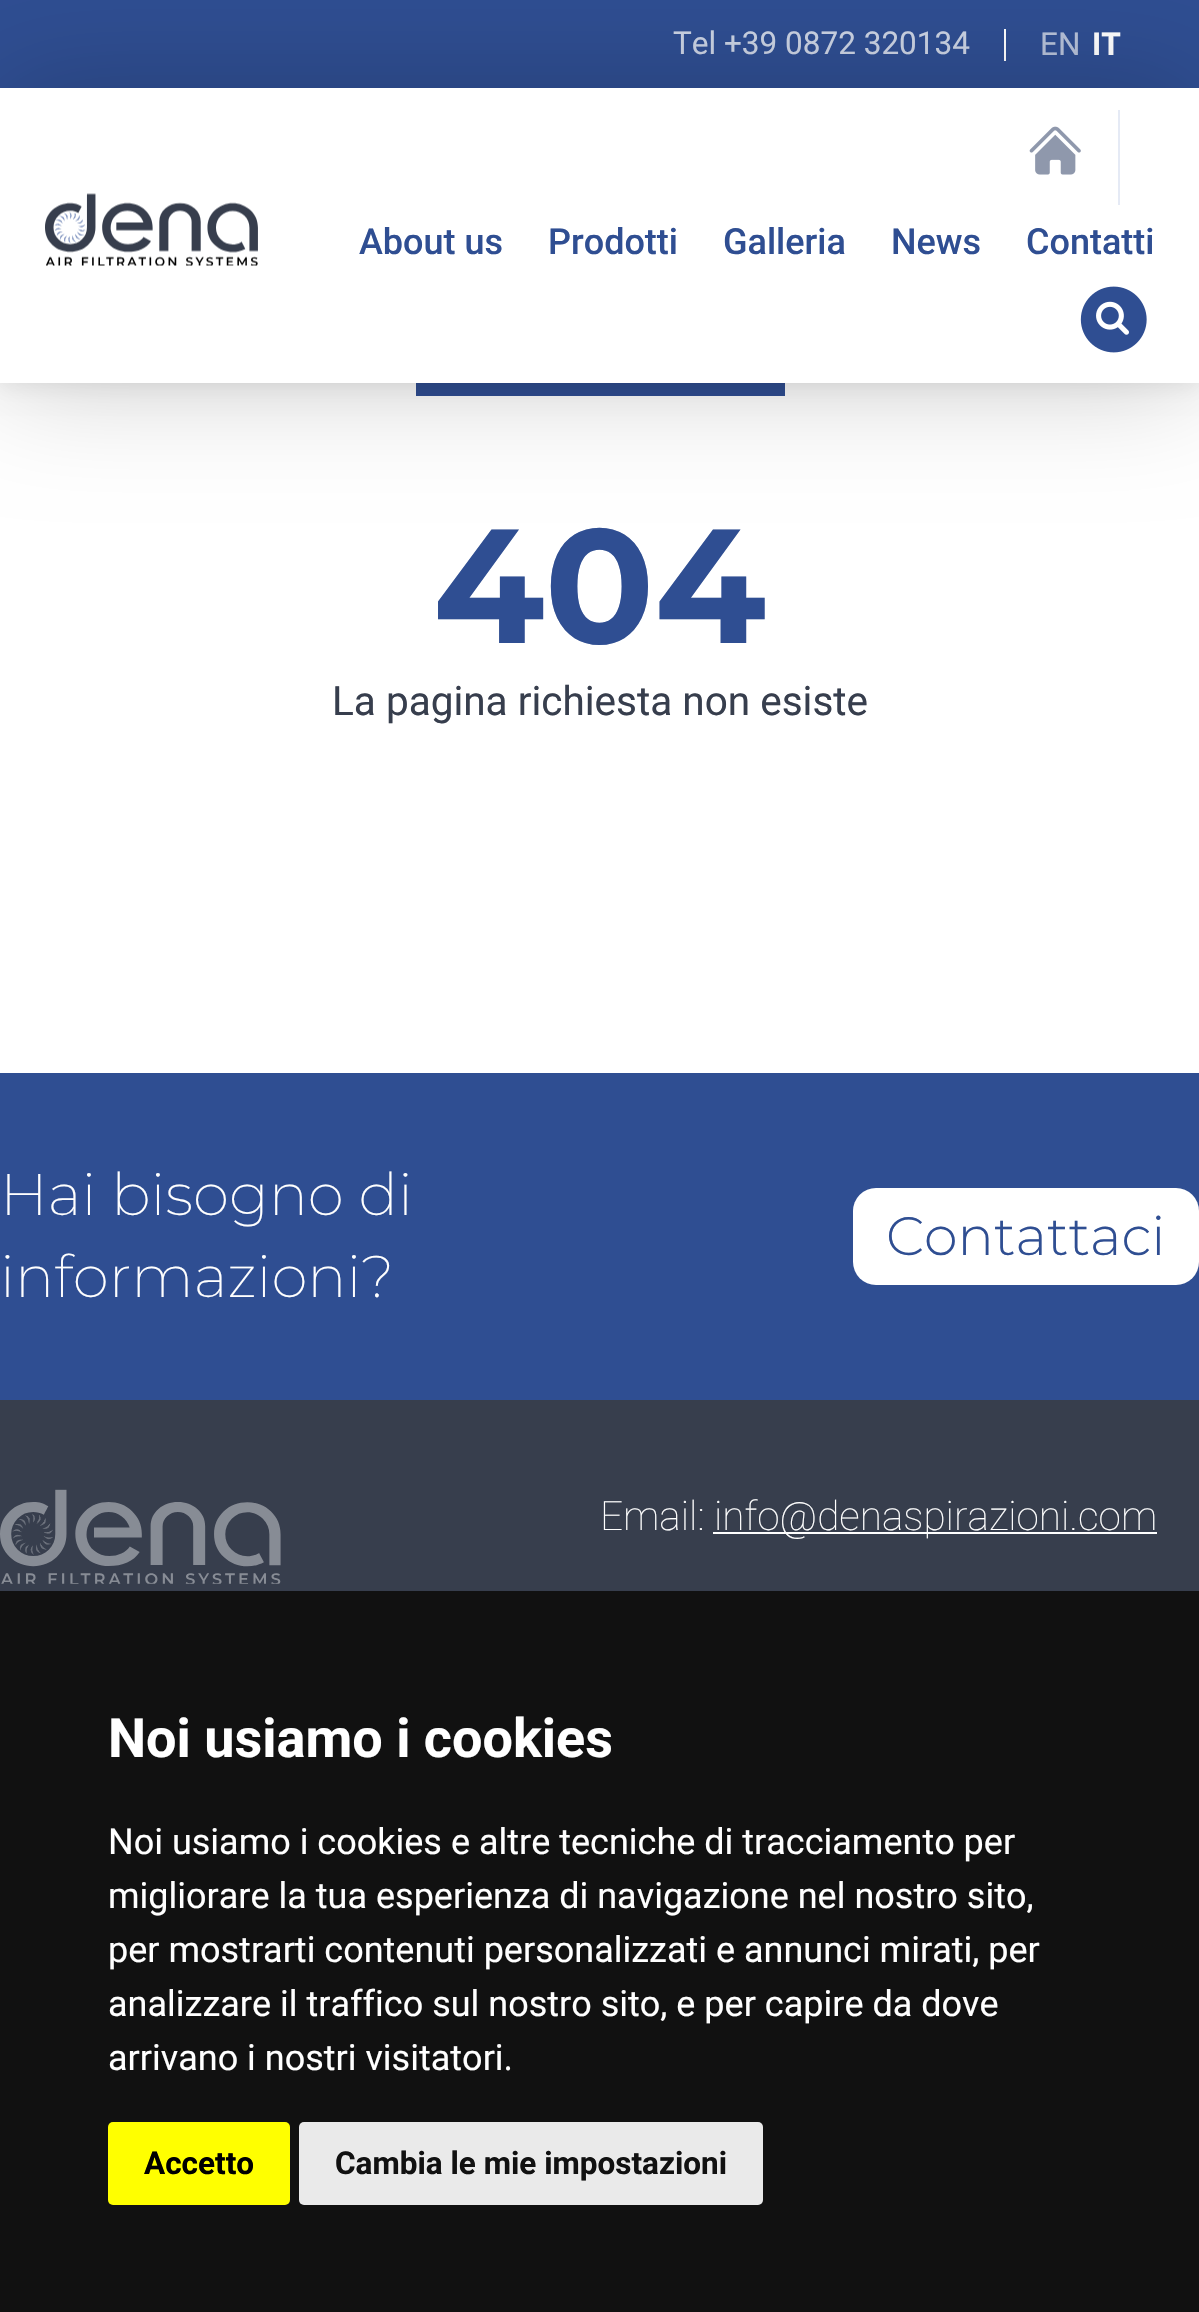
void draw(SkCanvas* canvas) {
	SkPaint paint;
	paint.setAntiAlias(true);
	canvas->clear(0xffffffff);
	canvas->drawImageRect(SkImages::DeferredFromEncodedData(SkData::MakeFromFileName("img4.png")), SkRect::MakeXYWH(416, 383, 369, 13), SkSamplingOptions());
	paint.setColor(0x1a000000);
	paint.setMaskFilter(SkMaskFilter::MakeBlur(kNormal_SkBlurStyle, 11));
	canvas->drawRect(SkRect::MakeXYWH(0, 0, 1199, 383), paint);
	paint.setMaskFilter(nullptr);
	paint.setColor(0xff2f4e92);
	canvas->drawRect(SkRect::MakeXYWH(0, 0, 1199, 88), paint);
	SkFont f1(fontMgr->matchFamilyStyle("Roboto", SkFontStyle::Normal()), 31.5);
	f1.setSubpixel(true);
	paint.setColor(0xffcbd3e4);
	canvas->drawString("Tel +39 0872 320134", 673, 54, f1, paint);
	paint.setColor(0xffffffff);
	canvas->drawRect(SkRect::MakeXYWH(1004, 29, 2, 32), paint);
	paint.setColor(0xffb6c1d9);
	canvas->drawString("EN", 1040, 55, f1, paint);
	SkFont f2(fontMgr->matchFamilyStyle("Roboto", SkFontStyle::Bold()), 31.5);
	f2.setSubpixel(true);
	paint.setColor(0xffffffff);
	canvas->drawString("IT", 1092, 55, f2, paint);
	paint.setColor(0x33000000);
	paint.setMaskFilter(SkMaskFilter::MakeBlur(kNormal_SkBlurStyle, 58.5));
	canvas->drawRect(SkRect::MakeXYWH(0, 88, 1199, 295), paint);
	paint.setMaskFilter(nullptr);
	paint.setColor(0xffffffff);
	canvas->drawRect(SkRect::MakeXYWH(0, 88, 1199, 295), paint);
	canvas->drawImageRect(SkImages::DeferredFromEncodedData(SkData::MakeFromFileName("img1.png")), SkRect::MakeXYWH(45, 193, 213, 73), SkSamplingOptions());
	paint.setColor(0xffe5eaf5);
	canvas->drawRect(SkRect::MakeXYWH(1118, 110, 2, 95), paint);
	canvas->drawImageRect(SkImages::DeferredFromEncodedData(SkData::MakeFromFileName("img2.png")), SkRect::MakeXYWH(1029, 126, 52, 49), SkSamplingOptions());
	SkFont f3(fontMgr->matchFamilyStyle("Roboto", SkFontStyle(500, SkFontStyle::kNormal_Width, SkFontStyle::kUpright_Slant)), 36);
	f3.setSubpixel(true);
	paint.setColor(0xff2f4e92);
	canvas->drawString("About us", 359, 254, f3, paint);
	canvas->drawString("Prodotti", 548, 254, f3, paint);
	canvas->drawString("Galleria", 723, 254, f3, paint);
	canvas->drawString("News", 891, 254, f3, paint);
	canvas->drawString("Contatti", 1026, 254, f3, paint);
	canvas->drawImageRect(SkImages::DeferredFromEncodedData(SkData::MakeFromFileName("img3.png")), SkRect::MakeXYWH(1080, 286, 67, 67), SkSamplingOptions());
	SkFont f4(fontMgr->matchFamilyStyle("Montserrat", SkFontStyle::Bold()), 162);
	f4.setSubpixel(true);
	canvas->drawString("404", 433, 643, f4, paint);
	SkFont f5(fontMgr->matchFamilyStyle("Roboto", SkFontStyle::Normal()), 40.5);
	f5.setSubpixel(true);
	paint.setColor(0xff373e4d);
	canvas->drawString("La pagina richiesta non esiste", 332, 715, f5, paint);
	canvas->drawRect(SkRect::MakeXYWH(0, 1400, 1199, 191), paint);
	paint.setColor(0xff2f4e92);
	canvas->drawRect(SkRect::MakeXYWH(0, 1073, 1199, 327), paint);
	SkFont f6(fontMgr->matchFamilyStyle("Montserrat", SkFontStyle(200, SkFontStyle::kNormal_Width, SkFontStyle::kUpright_Slant)), 58.5);
	f6.setSubpixel(true);
	paint.setColor(0xffffffff);
	canvas->drawString("Hai bisogno di", 0, 1215, f6, paint);
	canvas->drawString("informazioni?", 0, 1297, f6, paint);
	canvas->drawRoundRect(SkRect::MakeXYWH(853, 1188, 346, 97), 23, 23, paint);
	SkFont f7(fontMgr->matchFamilyStyle("Montserrat", SkFontStyle(300, SkFontStyle::kNormal_Width, SkFontStyle::kUpright_Slant)), 54);
	f7.setSubpixel(true);
	paint.setColor(0xff2f4e92);
	canvas->drawString("Contattaci", 886, 1255, f7, paint);
	canvas->drawImageRect(SkImages::DeferredFromEncodedData(SkData::MakeFromFileName("img5.png")), SkRect::MakeXYWH(0, 1489, 281, 95), SkSamplingOptions());
	SkFont f8(fontMgr->matchFamilyStyle("Roboto", SkFontStyle(100, SkFontStyle::kNormal_Width, SkFontStyle::kUpright_Slant)), 40.5);
	f8.setSubpixel(true);
	paint.setColor(0xffffffff);
	canvas->drawString("Email:", 600, 1530, f8, paint);
	canvas->drawRect(SkRect::MakeXYWH(713, 1532, 444, 2), paint);
	canvas->drawString("info@denaspirazioni.com", 714, 1530, f8, paint);
	paint.setColor(0xff111111);
	canvas->drawRect(SkRect::MakeXYWH(0, 1591, 1199, 721), paint);
	SkFont f9(fontMgr->matchFamilyStyle("Roboto", SkFontStyle::Bold()), 54);
	f9.setSubpixel(true);
	paint.setColor(0xffffffff);
	canvas->drawString("Noi usiamo i cookies", 108, 1757, f9, paint);
	SkFont f10(fontMgr->matchFamilyStyle("Roboto", SkFontStyle::Normal()), 36);
	f10.setSubpixel(true);
	canvas->drawString("Noi usiamo i cookies e altre tecniche di tracciamento per", 108, 1854, f10, paint);
	canvas->drawString("migliorare la tua esperienza di navigazione nel nostro sito,", 108, 1908, f10, paint);
	canvas->drawString("per mostrarti contenuti personalizzati e annunci mirati, per", 108, 1962, f10, paint);
	canvas->drawString("analizzare il traffico sul nostro sito, e per capire da dove", 108, 2016, f10, paint);
	canvas->drawString("arrivano i nostri visitatori.", 108, 2070, f10, paint);
	paint.setColor(0xffffff00);
	canvas->drawRoundRect(SkRect::MakeXYWH(108, 2122, 182, 83), 5, 5, paint);
	paint.setColor(0xff000000);
	canvas->drawString("Accetto", 144, 2174, f2, paint);
	paint.setColor(0xffeaeaea);
	canvas->drawRoundRect(SkRect::MakeXYWH(299, 2122, 464, 83), 5, 5, paint);
	paint.setColor(0xff111111);
	canvas->drawString("Cambia le mie impostazioni", 335, 2174, f2, paint);
}
